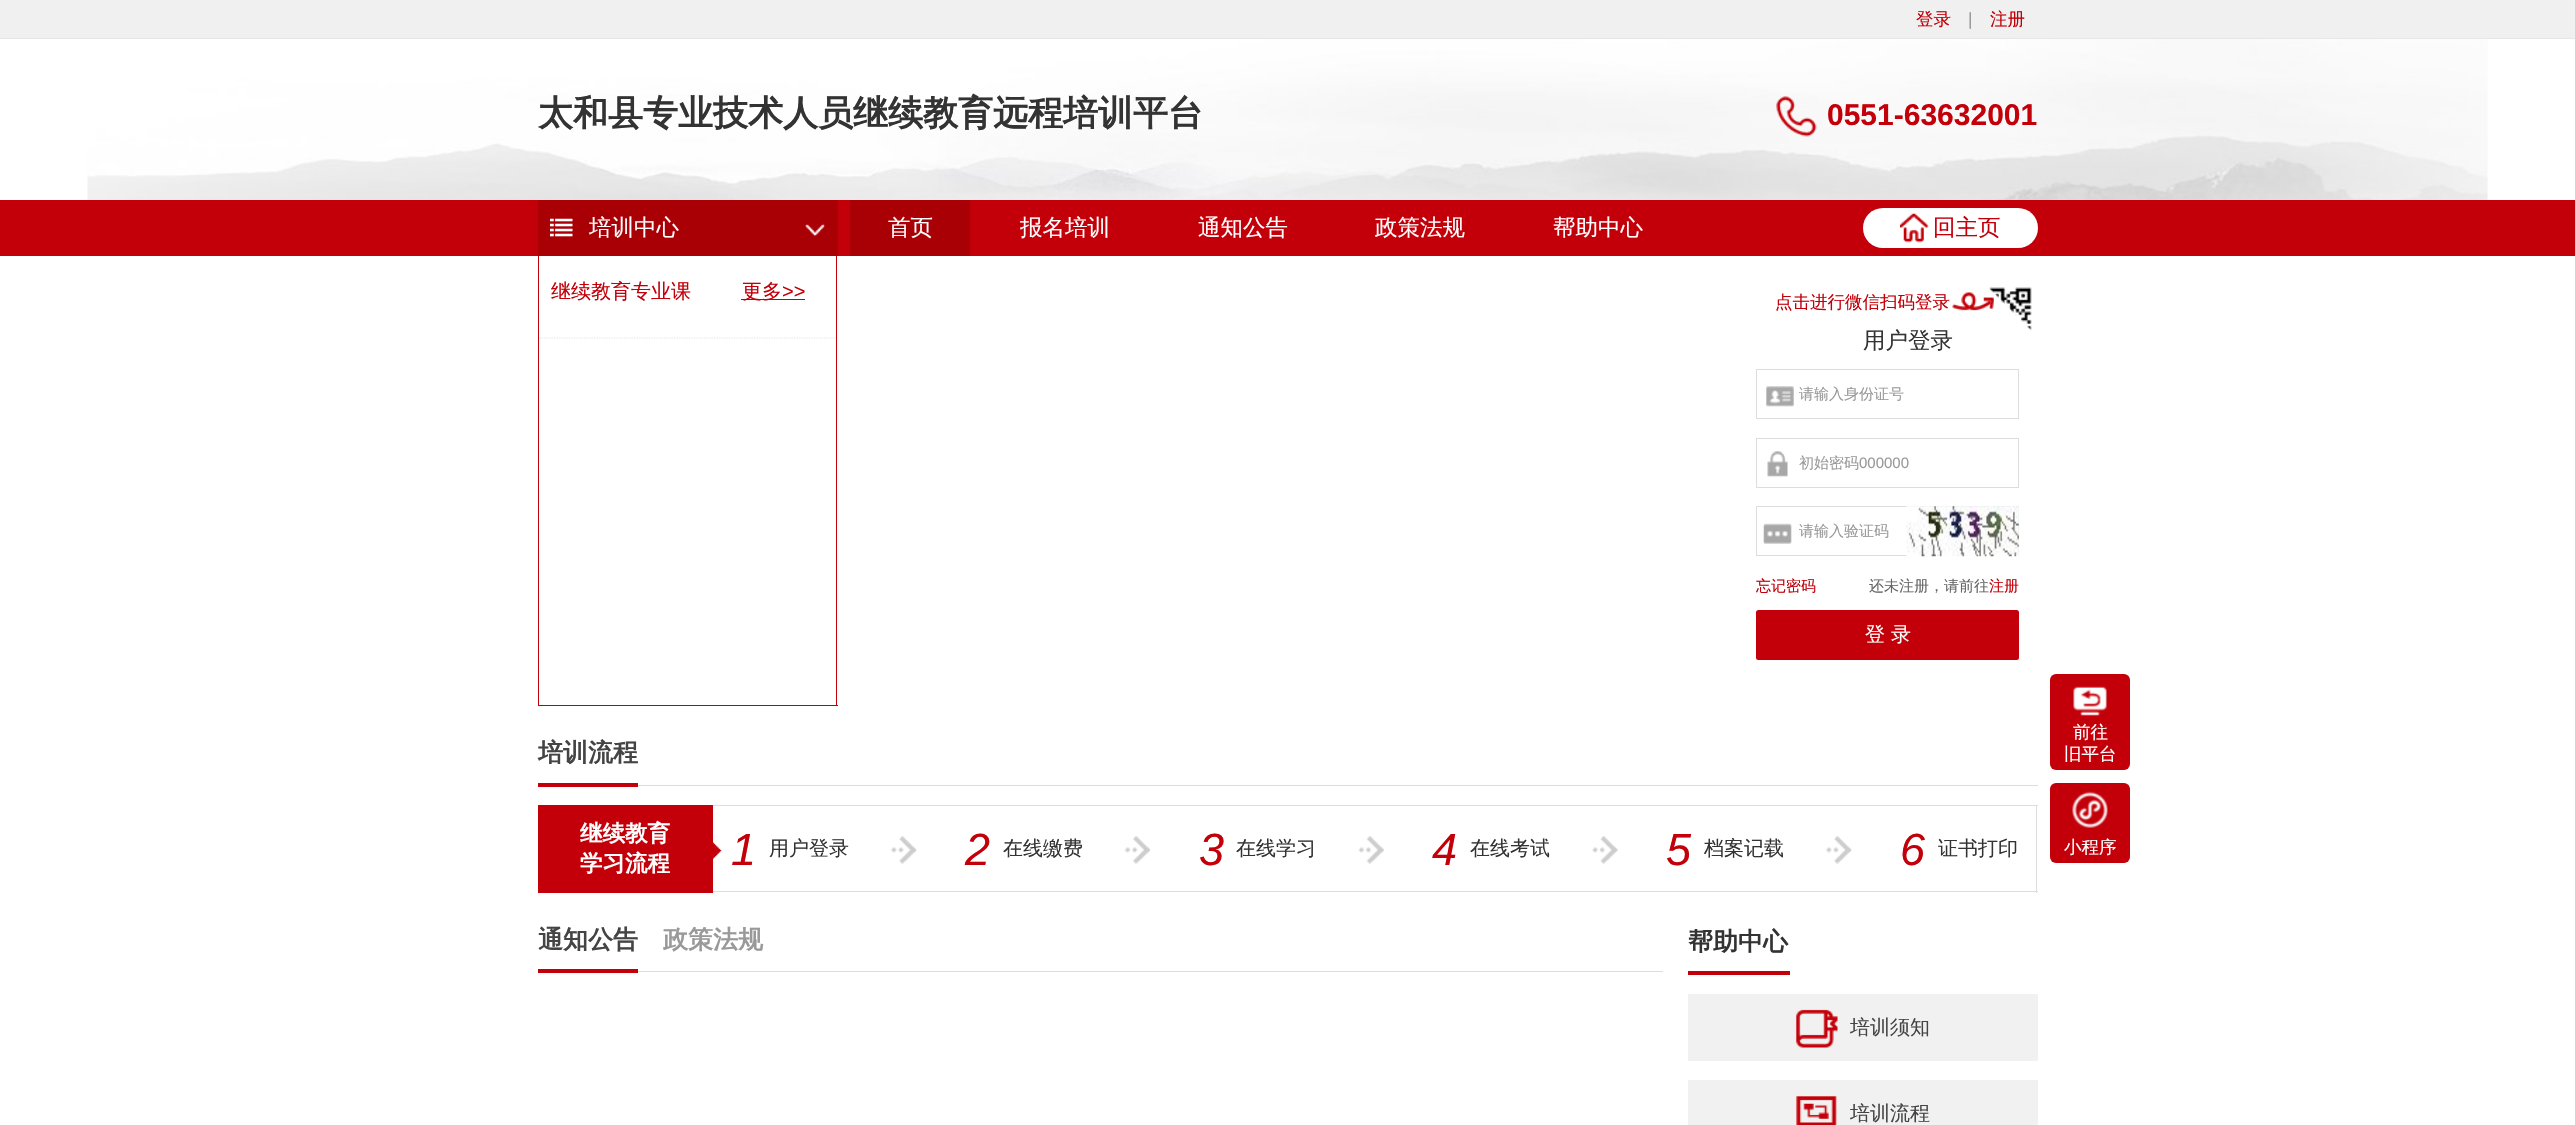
void draw(SkCanvas* canvas) {
	SkPaint paint;
	paint.setAntiAlias(true);
	auto svgPath = [&](const char* data, bool evenOdd = false) {
		SkPath result = *SkParsePath::FromSVGString(data);
		if (evenOdd) result.setFillType(SkPathFillType::kEvenOdd);
		return result;
	};
	canvas->clear(0xffffffff);
	canvas->drawImageRect(SkImages::DeferredFromEncodedData(SkData::MakeFromFileName("img1.png")), SkRect::MakeXYWH(87, 39, 2401, 161), SkSamplingOptions());
	paint.setColor(0xfff0f0f0);
	canvas->drawRect(SkRect::MakeXYWH(0, 0, 2575, 38), paint);
	paint.setColor(0xffe6e6e6);
	canvas->drawRect(SkRect::MakeXYWH(0, 38, 2575, 1), paint);
	SkFont f1(fontMgr->matchFamilyStyle("WenQuanYi Zen Hei", SkFontStyle(500, SkFontStyle::kNormal_Width, SkFontStyle::kUpright_Slant)), 17.5);
	f1.setSubpixel(true);
	paint.setColor(0xffc30009);
	canvas->drawString("登录", 1916, 25, f1, paint);
	SkFont f2(fontMgr->matchFamilyStyle("Liberation Sans", SkFontStyle::Normal()), 17.5);
	f2.setSubpixel(true);
	paint.setColor(0xff999999);
	canvas->drawString("|", 1968, 25, f2, paint);
	paint.setColor(0xffc30009);
	canvas->drawString("注册", 1990, 25, f1, paint);
	SkFont f3(fontMgr->matchFamilyStyle("WenQuanYi Zen Hei", SkFontStyle::Bold()), 35);
	f3.setSubpixel(true);
	paint.setColor(0xff333333);
	canvas->drawString("太和县专业技术人员继续教育远程培训平台", 538, 125, f3, paint);
	canvas->drawImageRect(SkImages::DeferredFromEncodedData(SkData::MakeFromFileName("img2.png")), SkRect::MakeXYWH(1776, 96, 41, 41), SkSamplingOptions());
	SkFont f4(fontMgr->matchFamilyStyle("Liberation Sans", SkFontStyle::Bold()), 30);
	f4.setSubpixel(true);
	paint.setColor(0xffc30009);
	canvas->drawString("0551-63632001", 1827, 125, f4, paint);
	canvas->drawRect(SkRect::MakeXYWH(0, 200, 2575, 56), paint);
	paint.setColor(0xffa90005);
	canvas->drawRect(SkRect::MakeXYWH(538, 200, 300, 56), paint);
	canvas->drawImageRect(SkImages::DeferredFromEncodedData(SkData::MakeFromFileName("img3.png")), SkRect::MakeXYWH(550, 218, 23, 19), SkSamplingOptions());
	SkFont f5(fontMgr->matchFamilyStyle("WenQuanYi Zen Hei", SkFontStyle(500, SkFontStyle::kNormal_Width, SkFontStyle::kUpright_Slant)), 22.5);
	f5.setSubpixel(true);
	paint.setColor(0xffffffff);
	canvas->drawString("培训中心", 589, 235, f5, paint);
	canvas->drawImageRect(SkImages::DeferredFromEncodedData(SkData::MakeFromFileName("img4.png")), SkRect::MakeXYWH(805, 223, 20, 14), SkSamplingOptions());
	paint.setColor(0xffc30009);
	canvas->drawRect(SkRect::MakeXYWH(836, 256, 1, 450), paint);
	canvas->drawRect(SkRect::MakeXYWH(538, 705, 300, 1), paint);
	canvas->drawRect(SkRect::MakeXYWH(538, 256, 1, 450), paint);
	paint.setStroke(true);
	paint.setStrokeWidth(1.2);
	paint.setColor(0xffe6e6e6);
	paint.setPathEffect(SkDashPathEffect::Make({{1.25f, 1.25f}}, 0));
	canvas->drawPath(svgPath("M539 338H836"), paint);
	paint.setPathEffect(nullptr);
	SkFont f6(fontMgr->matchFamilyStyle("WenQuanYi Zen Hei", SkFontStyle(500, SkFontStyle::kNormal_Width, SkFontStyle::kUpright_Slant)), 20);
	f6.setSubpixel(true);
	paint.setStroke(false);
	paint.setColor(0xffc30009);
	canvas->drawString("继续教育专业课", 551, 298, f6, paint);
	canvas->drawRect(SkRect::MakeXYWH(741, 299, 64, 1), paint);
	canvas->drawString("更多", 742, 298, f6, paint);
	SkFont f7(fontMgr->matchFamilyStyle("Liberation Sans", SkFontStyle::Normal()), 20);
	f7.setSubpixel(true);
	canvas->drawString(">>", 782, 298, f7, paint);
	paint.setColor(0xffa90005);
	canvas->drawRect(SkRect::MakeXYWH(850, 200, 120, 56), paint);
	paint.setColor(0xffffffff);
	canvas->drawString("首页", 888, 235, f5, paint);
	canvas->drawString("报名培训", 1020, 235, f5, paint);
	canvas->drawString("通知公告", 1198, 235, f5, paint);
	canvas->drawString("政策法规", 1375, 235, f5, paint);
	canvas->drawString("帮助中心", 1553, 235, f5, paint);
	canvas->drawRoundRect(SkRect::MakeXYWH(1863, 208, 175, 40), 20, 20, paint);
	canvas->drawImageRect(SkImages::DeferredFromEncodedData(SkData::MakeFromFileName("img5.png")), SkRect::MakeXYWH(1900, 213, 29, 30), SkSamplingOptions());
	paint.setColor(0xffc30009);
	canvas->drawString("回主页", 1933, 235, f5, paint);
	canvas->drawString("点击进行微信扫码登录", 1775, 308, f1, paint);
	canvas->drawImageRect(SkImages::DeferredFromEncodedData(SkData::MakeFromFileName("img7.png")), SkRect::MakeXYWH(1989, 287, 43, 44), SkSamplingOptions());
	canvas->drawImageRect(SkImages::DeferredFromEncodedData(SkData::MakeFromFileName("img6.png")), SkRect::MakeXYWH(1952, 292, 42, 19), SkSamplingOptions());
	paint.setColor(0xff333333);
	canvas->drawString("用户登录", 1863, 348, f5, paint);
	paint.setStroke(true);
	paint.setStrokeWidth(1);
	paint.setColor(0xffdddddd);
	canvas->drawRect(SkRect::MakeXYWH(1756.5, 369.5, 262, 49), paint);
	canvas->drawImageRect(SkImages::DeferredFromEncodedData(SkData::MakeFromFileName("img8.png")), SkRect::MakeXYWH(1766, 386, 28, 21), SkSamplingOptions());
	SkFont f8(fontMgr->matchFamilyStyle("WenQuanYi Zen Hei", SkFontStyle(500, SkFontStyle::kNormal_Width, SkFontStyle::kUpright_Slant)), 15);
	f8.setSubpixel(true);
	paint.setStroke(false);
	paint.setColor(0xff999999);
	canvas->drawString("请输入身份证号", 1799, 399, f8, paint);
	paint.setStroke(true);
	paint.setColor(0xffdddddd);
	canvas->drawRect(SkRect::MakeXYWH(1756.5, 438.5, 262, 49), paint);
	canvas->drawImageRect(SkImages::DeferredFromEncodedData(SkData::MakeFromFileName("img9.png")), SkRect::MakeXYWH(1767, 451, 21, 26), SkSamplingOptions());
	paint.setStroke(false);
	paint.setColor(0xff999999);
	canvas->drawString("初始密码", 1799, 468, f8, paint);
	SkFont f9(fontMgr->matchFamilyStyle("Liberation Sans", SkFontStyle::Normal()), 15);
	f9.setSubpixel(true);
	canvas->drawString("000000", 1859, 468, f9, paint);
	paint.setStroke(true);
	paint.setColor(0xffdddddd);
	canvas->drawRect(SkRect::MakeXYWH(1756.5, 506.5, 262, 49), paint);
	canvas->drawImageRect(SkImages::DeferredFromEncodedData(SkData::MakeFromFileName("img10.png")), SkRect::MakeXYWH(1763, 523, 29, 21), SkSamplingOptions());
	paint.setStroke(false);
	paint.setColor(0xff999999);
	canvas->drawString("请输入验证码", 1799, 536, f8, paint);
	canvas->drawImageRect(SkImages::DeferredFromEncodedData(SkData::MakeFromFileName("img11.png")), SkRect::MakeXYWH(1906, 506, 113, 51), SkSamplingOptions());
	paint.setColor(0xffc30009);
	canvas->drawString("忘记密码", 1756, 591, f8, paint);
	paint.setColor(0xff666666);
	canvas->drawString("还未注册，请前往", 1869, 591, f8, paint);
	paint.setColor(0xffc30009);
	canvas->drawString("注册", 1989, 591, f8, paint);
	canvas->drawRoundRect(SkRect::MakeXYWH(1756, 610, 263, 50), 2.5, 2.5, paint);
	paint.setColor(0xffffffff);
	canvas->drawString("登 录", 1865, 641, f6, paint);
	paint.setColor(0xffdddddd);
	canvas->drawRect(SkRect::MakeXYWH(638, 785, 1400, 1), paint);
	paint.setColor(0xffc30009);
	canvas->drawRect(SkRect::MakeXYWH(538, 783, 100, 4), paint);
	SkFont f10(fontMgr->matchFamilyStyle("WenQuanYi Zen Hei", SkFontStyle::Bold()), 25);
	f10.setSubpixel(true);
	paint.setColor(0xff444444);
	canvas->drawString("培训流程", 538, 761, f10, paint);
	paint.setColor(0xffc30009);
	canvas->drawRect(SkRect::MakeXYWH(538, 805, 175, 88), paint);
	SkFont f11(fontMgr->matchFamilyStyle("WenQuanYi Zen Hei", SkFontStyle::Bold()), 22.5);
	f11.setSubpixel(true);
	paint.setColor(0xffffffff);
	canvas->drawString("继续教育", 580, 841, f11, paint);
	canvas->drawString("学习流程", 580, 871, f11, paint);
	canvas->drawImageRect(SkImages::DeferredFromEncodedData(SkData::MakeFromFileName("img12.png")), SkRect::MakeXYWH(713, 842, 9, 17), SkSamplingOptions());
	paint.setColor(0xffdddddd);
	canvas->drawRect(SkRect::MakeXYWH(713, 805, 1325, 1), paint);
	canvas->drawRect(SkRect::MakeXYWH(2036, 805, 1, 88), paint);
	canvas->drawRect(SkRect::MakeXYWH(713, 891, 1325, 1), paint);
	SkFont f12(fontMgr->matchFamilyStyle("Liberation Sans", SkFontStyle::Italic()), 45);
	f12.setSubpixel(true);
	paint.setColor(0xffc30009);
	canvas->drawString("1", 731, 865, f12, paint);
	paint.setColor(0xff333333);
	canvas->drawString("用户登录", 769, 855, f6, paint);
	canvas->drawImageRect(SkImages::DeferredFromEncodedData(SkData::MakeFromFileName("img13.png")), SkRect::MakeXYWH(891, 836, 26, 28), SkSamplingOptions());
	paint.setColor(0xffc30009);
	canvas->drawString("2", 965, 865, f12, paint);
	paint.setColor(0xff333333);
	canvas->drawString("在线缴费", 1003, 855, f6, paint);
	canvas->drawImageRect(SkImages::DeferredFromEncodedData(SkData::MakeFromFileName("img14.png")), SkRect::MakeXYWH(1125, 836, 25, 28), SkSamplingOptions());
	paint.setColor(0xffc30009);
	canvas->drawString("3", 1199, 865, f12, paint);
	paint.setColor(0xff333333);
	canvas->drawString("在线学习", 1236, 855, f6, paint);
	canvas->drawImageRect(SkImages::DeferredFromEncodedData(SkData::MakeFromFileName("img15.png")), SkRect::MakeXYWH(1358, 836, 26, 28), SkSamplingOptions());
	paint.setColor(0xffc30009);
	canvas->drawString("4", 1432, 865, f12, paint);
	paint.setColor(0xff333333);
	canvas->drawString("在线考试", 1470, 855, f6, paint);
	canvas->drawImageRect(SkImages::DeferredFromEncodedData(SkData::MakeFromFileName("img16.png")), SkRect::MakeXYWH(1592, 836, 26, 28), SkSamplingOptions());
	paint.setColor(0xffc30009);
	canvas->drawString("5", 1666, 865, f12, paint);
	paint.setColor(0xff333333);
	canvas->drawString("档案记载", 1704, 855, f6, paint);
	canvas->drawImageRect(SkImages::DeferredFromEncodedData(SkData::MakeFromFileName("img13.png")), SkRect::MakeXYWH(1826, 836, 26, 28), SkSamplingOptions());
	paint.setColor(0xffc30009);
	canvas->drawString("6", 1900, 865, f12, paint);
	paint.setColor(0xff333333);
	canvas->drawString("证书打印", 1938, 855, f6, paint);
	paint.setColor(0xffdddddd);
	canvas->drawRect(SkRect::MakeXYWH(638, 971, 1025, 1), paint);
	paint.setColor(0xffc30009);
	canvas->drawRect(SkRect::MakeXYWH(538, 969, 100, 4), paint);
	paint.setColor(0xff444444);
	canvas->drawString("通知公告", 538, 948, f10, paint);
	paint.setColor(0xff999999);
	canvas->drawString("政策法规", 663, 948, f10, paint);
	paint.setColor(0xffc30009);
	canvas->drawRect(SkRect::MakeXYWH(1688, 971, 102, 4), paint);
	paint.setColor(0xff333333);
	canvas->drawString("帮助中心", 1688, 950, f10, paint);
	paint.setColor(0xfff1f1f1);
	canvas->drawRect(SkRect::MakeXYWH(1688, 994, 350, 67), paint);
	canvas->drawImageRect(SkImages::DeferredFromEncodedData(SkData::MakeFromFileName("img17.png")), SkRect::MakeXYWH(1796, 1009, 42, 39), SkSamplingOptions());
	paint.setColor(0xff444444);
	canvas->drawString("培训须知", 1850, 1034, f6, paint);
	paint.setColor(0xfff1f1f1);
	canvas->drawRect(SkRect::MakeXYWH(1688, 1080, 350, 45), paint);
	canvas->drawImageRect(SkImages::DeferredFromEncodedData(SkData::MakeFromFileName("img18.png")), SkRect::MakeXYWH(1796, 1096, 41, 29), SkSamplingOptions());
	paint.setColor(0xff444444);
	canvas->drawString("培训流程", 1850, 1120, f6, paint);
	paint.setColor(0xffc30009);
	canvas->drawRoundRect(SkRect::MakeXYWH(2050, 674, 80, 96), 6, 6, paint);
	canvas->drawImageRect(SkImages::DeferredFromEncodedData(SkData::MakeFromFileName("img19.png")), SkRect::MakeXYWH(2073, 686, 34, 30), SkSamplingOptions());
	paint.setColor(0xffffffff);
	canvas->drawString("前往", 2073, 738, f1, paint);
	canvas->drawString("旧平台", 2064, 760, f1, paint);
	paint.setColor(0xffc30009);
	canvas->drawRoundRect(SkRect::MakeXYWH(2050, 783, 80, 80), 6, 6, paint);
	canvas->drawImageRect(SkImages::DeferredFromEncodedData(SkData::MakeFromFileName("img20.png")), SkRect::MakeXYWH(2072, 791, 36, 37), SkSamplingOptions());
	paint.setColor(0xffffffff);
	canvas->drawString("小程序", 2064, 853, f1, paint);
}
